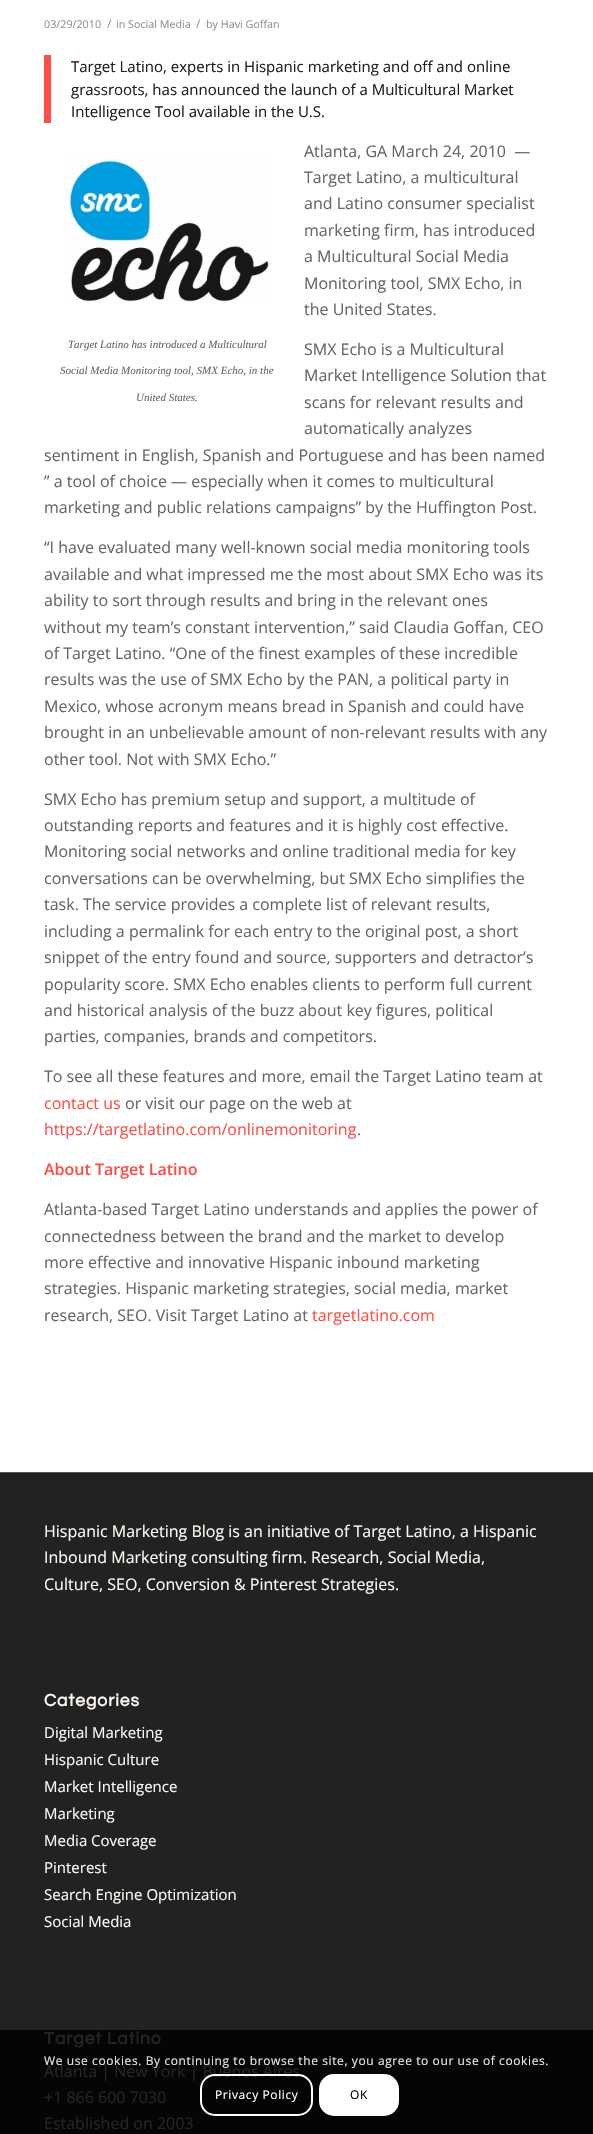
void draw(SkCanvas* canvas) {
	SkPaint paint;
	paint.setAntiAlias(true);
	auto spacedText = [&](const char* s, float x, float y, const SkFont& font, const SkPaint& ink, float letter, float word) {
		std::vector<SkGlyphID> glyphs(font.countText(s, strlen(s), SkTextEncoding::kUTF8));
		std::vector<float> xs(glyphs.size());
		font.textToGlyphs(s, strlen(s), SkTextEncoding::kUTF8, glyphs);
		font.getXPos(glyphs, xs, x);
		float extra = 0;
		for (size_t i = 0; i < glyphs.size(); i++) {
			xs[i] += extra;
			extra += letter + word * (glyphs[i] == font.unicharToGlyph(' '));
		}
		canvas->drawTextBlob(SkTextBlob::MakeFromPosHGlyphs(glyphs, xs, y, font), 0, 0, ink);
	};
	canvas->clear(0xffffffff);
	SkFont f1(fontMgr->matchFamilyStyle("Open Sans", SkFontStyle::Normal()), 10.75);
	f1.setSubpixel(true);
	paint.setColor(0xff919191);
	canvas->drawString("03/29/2010", 44, 28, f1, paint);
	SkFont f2(fontMgr->matchFamilyStyle("Open Sans", SkFontStyle::Normal()), 12);
	f2.setSubpixel(true);
	canvas->drawString("/", 107, 28, f2, paint);
	canvas->drawString("in Social Media", 116, 28, f1, paint);
	canvas->drawString("/", 196, 28, f2, paint);
	canvas->drawString("by Havi Goffan", 206, 28, f1, paint);
	paint.setColor(0xffff4d47);
	canvas->drawRect(SkRect::MakeXYWH(44, 55, 7, 68), paint);
	SkFont f3(fontMgr->matchFamilyStyle("Open Sans", SkFontStyle::Normal()), 15);
	f3.setSubpixel(true);
	paint.setColor(0xff202020);
	canvas->drawString("Target Latino, experts in Hispanic marketing and off and online", 71, 72, f3, paint);
	canvas->drawString("grassroots, has announced the launch of a Multicultural Market", 71, 95, f3, paint);
	canvas->drawString("Intelligence Tool available in the U.S.", 71, 117, f3, paint);
	SkFont f4(fontMgr->matchFamilyStyle("Open Sans", SkFontStyle::Normal()), 16);
	f4.setSubpixel(true);
	paint.setColor(0xff666666);
	canvas->drawString("Atlanta, GA March 24, 2010  —", 304, 157, f4, paint);
	canvas->drawString("Target Latino, a multicultural", 304, 183, f4, paint);
	canvas->drawString("and Latino consumer specialist", 304, 209, f4, paint);
	canvas->drawString("marketing firm, has introduced", 304, 236, f4, paint);
	canvas->drawString("a Multicultural Social Media", 304, 262, f4, paint);
	canvas->drawString("Monitoring tool, SMX Echo, in", 304, 289, f4, paint);
	canvas->drawString("the United States.", 304, 315, f4, paint);
	canvas->drawImageRect(SkImages::DeferredFromEncodedData(SkData::MakeFromFileName("img1.png")), SkRect::MakeXYWH(69, 159, 200, 143), SkSamplingOptions());
	SkFont f5(fontMgr->matchFamilyStyle("Liberation Serif", SkFontStyle::Italic()), 11);
	f5.setSubpixel(true);
	canvas->drawString("Target Latino has introduced a Multicultural", 68, 348, f5, paint);
	canvas->drawString("Social Media Monitoring tool, SMX Echo, in the", 60, 374, f5, paint);
	canvas->drawString("United States.", 136, 401, f5, paint);
	canvas->drawString("SMX Echo is a Multicultural", 304, 355, f4, paint);
	canvas->drawString("Market Intelligence Solution that", 304, 381, f4, paint);
	canvas->drawString("scans for relevant results and", 304, 408, f4, paint);
	canvas->drawString("automatically analyzes", 304, 434, f4, paint);
	canvas->drawString("sentiment in English, Spanish and Portuguese and has been named", 44, 461, f4, paint);
	canvas->drawString("” a tool of choice — especially when it comes to multicultural", 44, 487, f4, paint);
	canvas->drawString("marketing and public relations campaigns” by the Huffington Post.", 44, 513, f4, paint);
	canvas->drawString("“I have evaluated many well-known social media monitoring tools", 44, 553, f4, paint);
	canvas->drawString("available and what impressed me the most about SMX Echo was its", 44, 580, f4, paint);
	canvas->drawString("ability to sort through results and bring in the relevant ones", 44, 606, f4, paint);
	canvas->drawString("without my team’s constant intervention,” said Claudia Goffan, CEO", 44, 633, f4, paint);
	canvas->drawString("of Target Latino. “One of the finest examples of these incredible", 44, 659, f4, paint);
	canvas->drawString("results was the use of SMX Echo by the PAN, a political party in", 44, 685, f4, paint);
	canvas->drawString("Mexico, whose acronym means bread in Spanish and could have", 44, 712, f4, paint);
	canvas->drawString("brought in an unbelievable amount of non-relevant results with any", 44, 738, f4, paint);
	canvas->drawString("other tool. Not with SMX Echo.”", 44, 765, f4, paint);
	canvas->drawString("SMX Echo has premium setup and support, a multitude of", 44, 805, f4, paint);
	canvas->drawString("outstanding reports and features and it is highly cost effective.", 44, 831, f4, paint);
	canvas->drawString("Monitoring social networks and online traditional media for key", 44, 857, f4, paint);
	canvas->drawString("conversations can be overwhelming, but SMX Echo simplifies the", 44, 884, f4, paint);
	canvas->drawString("task. The service provides a complete list of relevant results,", 44, 910, f4, paint);
	canvas->drawString("including a permalink for each entry to the original post, a short", 44, 937, f4, paint);
	canvas->drawString("snippet of the entry found and source, supporters and detractor’s", 44, 963, f4, paint);
	canvas->drawString("popularity score. SMX Echo enables clients to perform full current", 44, 990, f4, paint);
	canvas->drawString("and historical analysis of the buzz about key figures, political", 44, 1016, f4, paint);
	canvas->drawString("parties, companies, brands and competitors.", 44, 1042, f4, paint);
	canvas->drawString("To see all these features and more, email the Target Latino team at", 44, 1082, f4, paint);
	paint.setColor(0xffff4d47);
	canvas->drawString("contact us", 44, 1109, f4, paint);
	paint.setColor(0xff666666);
	canvas->drawString("or visit our page on the web at", 125, 1109, f4, paint);
	paint.setColor(0xffff4d47);
	canvas->drawString("https://targetlatino.com/onlinemonitoring", 44, 1135, f4, paint);
	paint.setColor(0xff666666);
	canvas->drawString(".", 357, 1135, f4, paint);
	SkFont f6(fontMgr->matchFamilyStyle("Open Sans", SkFontStyle(600, SkFontStyle::kNormal_Width, SkFontStyle::kUpright_Slant)), 16);
	f6.setSubpixel(true);
	paint.setColor(0xffff4d47);
	canvas->drawString("About Target Latino", 44, 1175, f6, paint);
	paint.setColor(0xff666666);
	canvas->drawString("Atlanta-based Target Latino understands and applies the power of", 44, 1215, f4, paint);
	canvas->drawString("connectedness between the brand and the market to develop", 44, 1242, f4, paint);
	canvas->drawString("more effective and innovative Hispanic inbound marketing", 44, 1268, f4, paint);
	canvas->drawString("strategies. Hispanic marketing strategies, social media, market", 44, 1294, f4, paint);
	canvas->drawString("research, SEO. Visit Target Latino at", 44, 1321, f4, paint);
	paint.setColor(0xffff4d47);
	canvas->drawString("targetlatino.com", 312, 1321, f4, paint);
	paint.setColor(0xff222222);
	canvas->drawRect(SkRect::MakeXYWH(0, 1473, 593, 557), paint);
	paint.setColor(0xff050505);
	canvas->drawRect(SkRect::MakeXYWH(0, 2030, 593, 104), paint);
	paint.setColor(0xff555555);
	canvas->drawRect(SkRect::MakeXYWH(0, 1472, 593, 1), paint);
	paint.setColor(0xfffcf7f1);
	canvas->drawString("Hispanic Marketing Blog is an initiative of Target Latino, a Hispanic", 44, 1537, f4, paint);
	canvas->drawString("Inbound Marketing consulting firm. Research, Social Media,", 44, 1563, f4, paint);
	canvas->drawString("Culture, SEO, Conversion & Pinterest Strategies.", 44, 1590, f4, paint);
	SkFont f7(fontMgr->matchFamilyStyle("Questrial", SkFontStyle::Bold()), 17.5);
	f7.setSubpixel(true);
	spacedText("Categories", 44, 1706, f7, paint, 1, 0);
	canvas->drawString("Digital Marketing", 44, 1738, f3, paint);
	canvas->drawString("Hispanic Culture", 44, 1765, f3, paint);
	canvas->drawString("Market Intelligence", 44, 1792, f3, paint);
	canvas->drawString("Marketing", 44, 1819, f3, paint);
	canvas->drawString("Media Coverage", 44, 1846, f3, paint);
	canvas->drawString("Pinterest", 44, 1873, f3, paint);
	canvas->drawString("Search Engine Optimization", 44, 1900, f3, paint);
	canvas->drawString("Social Media", 44, 1927, f3, paint);
	paint.setColor(0xff262524);
	spacedText("Target Latino", 44, 2044, f7, paint, 1, 0);
	canvas->drawString("Atlanta | New York | Buenos Aires", 44, 2077, f4, paint);
	canvas->drawString("+1 866 600 7030", 44, 2103, f4, paint);
	canvas->drawString("Established on 2003", 44, 2129, f4, paint);
	paint.setColor(0xffe6e6e6);
	spacedText("We use cookies. By continuing to browse the site, you agree to our use of cookies.", 44, 2065, f2, paint, 0.6, 0);
	paint.setStroke(true);
	paint.setStrokeWidth(2);
	paint.setColor(0xffffffff);
	canvas->drawRoundRect(SkRect::MakeXYWH(201, 2075, 111, 40), 14, 14, paint);
	paint.setStroke(false);
	spacedText("Privacy Policy", 215, 2099, f2, paint, 0.6, 0);
	canvas->drawRoundRect(SkRect::MakeXYWH(319, 2074, 80, 42), 15, 15, paint);
	paint.setColor(0xff000000);
	spacedText("OK", 350, 2099, f2, paint, 0.6, 0);
}
